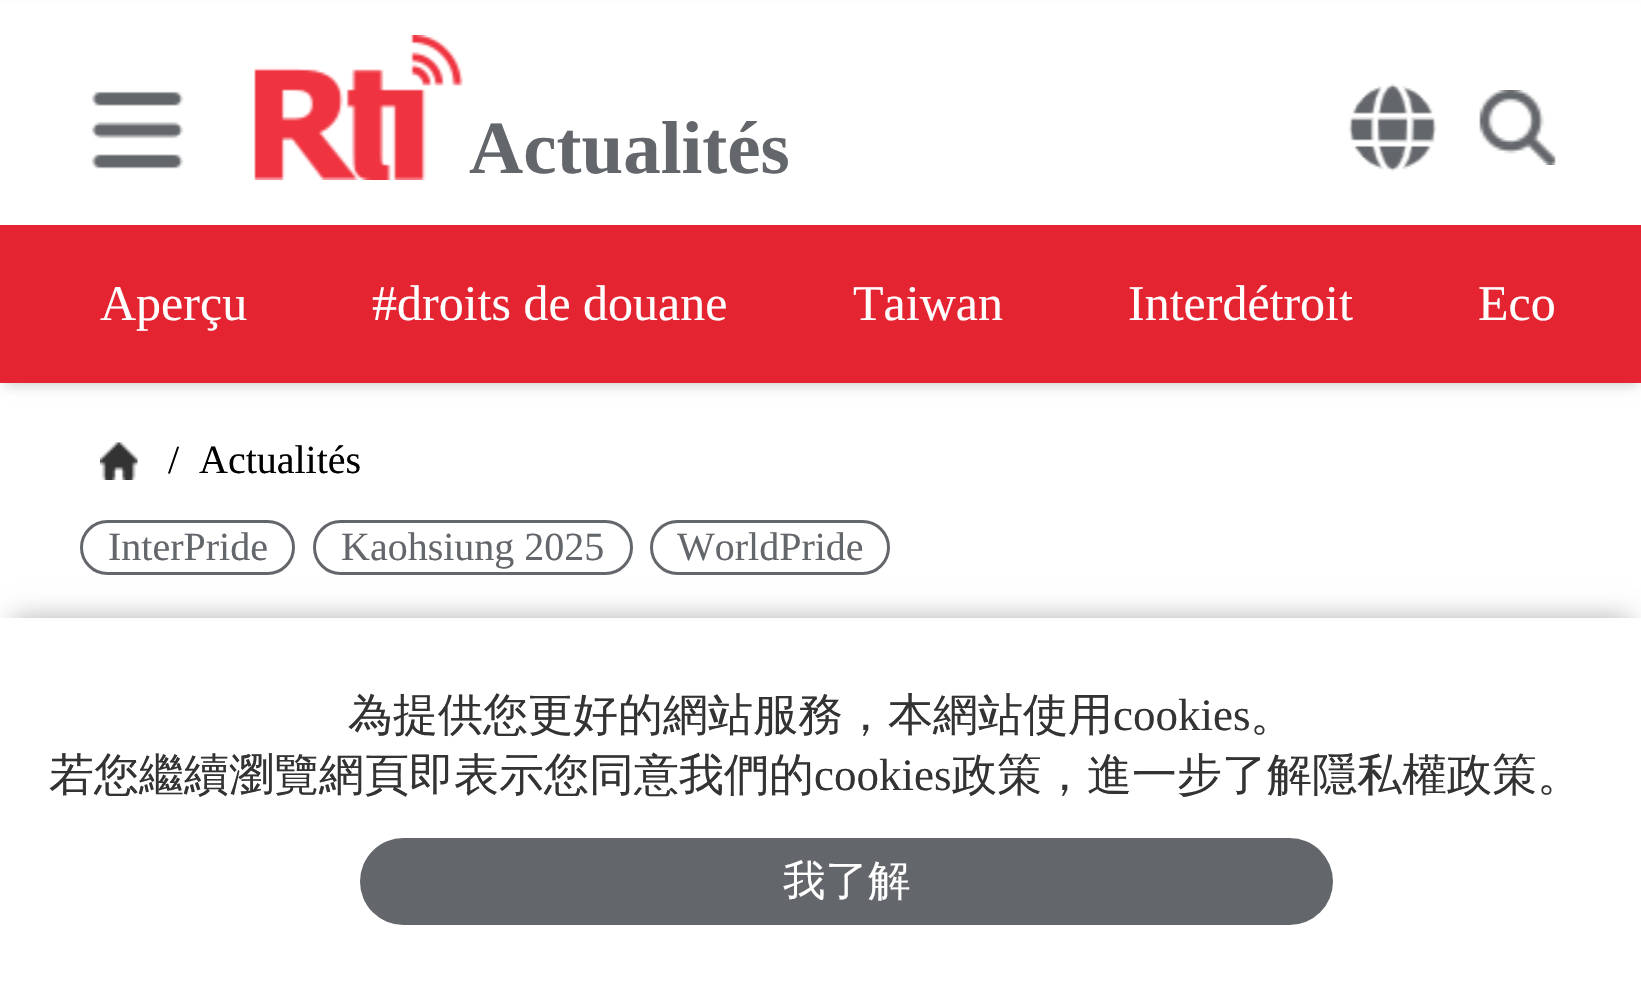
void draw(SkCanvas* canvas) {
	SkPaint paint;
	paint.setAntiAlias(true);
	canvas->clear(0xffffffff);
	paint.setColor(0x33000000);
	paint.setMaskFilter(SkMaskFilter::MakeBlur(kNormal_SkBlurStyle, 6));
	canvas->drawRect(SkRect::MakeXYWH(5, 13, 1633, 372), paint);
	paint.setMaskFilter(nullptr);
	paint.setColor(0xffffffff);
	canvas->drawRect(SkRect::MakeXYWH(0, 3, 1641, 222), paint);
	canvas->drawImageRect(SkImages::DeferredFromEncodedData(SkData::MakeFromFileName("img1.png")), SkRect::MakeXYWH(91, 91, 93, 78), SkSamplingOptions());
	canvas->drawImageRect(SkImages::DeferredFromEncodedData(SkData::MakeFromFileName("img2.png")), SkRect::MakeXYWH(254, 35, 209, 145), SkSamplingOptions());
	SkFont f1(fontMgr->matchFamilyStyle("Liberation Serif", SkFontStyle::Bold()), 75);
	f1.setSubpixel(true);
	paint.setColor(0xff63666a);
	canvas->drawString("Actualités", 469, 173, f1, paint);
	canvas->drawImageRect(SkImages::DeferredFromEncodedData(SkData::MakeFromFileName("img3.png")), SkRect::MakeXYWH(1348, 83, 89, 89), SkSamplingOptions());
	canvas->drawImageRect(SkImages::DeferredFromEncodedData(SkData::MakeFromFileName("img4.png")), SkRect::MakeXYWH(1479, 90, 77, 75), SkSamplingOptions());
	paint.setColor(0xffe52431);
	canvas->drawRect(SkRect::MakeXYWH(0, 225, 1641, 158), paint);
	SkFont f2(fontMgr->matchFamilyStyle("Liberation Serif", SkFontStyle::Normal()), 50);
	f2.setSubpixel(true);
	paint.setColor(0xffffffff);
	canvas->drawString("Aperçu", 100, 320, f2, paint);
	canvas->drawString("#droits de douane", 372, 320, f2, paint);
	canvas->drawString("Taiwan", 853, 320, f2, paint);
	canvas->drawString("Interdétroit", 1128, 320, f2, paint);
	canvas->drawString("Eco", 1478, 320, f2, paint);
	canvas->drawImageRect(SkImages::DeferredFromEncodedData(SkData::MakeFromFileName("img5.png")), SkRect::MakeXYWH(100, 442, 38, 38), SkSamplingOptions());
	SkFont f3(fontMgr->matchFamilyStyle("Liberation Serif", SkFontStyle::Normal()), 40);
	f3.setSubpixel(true);
	paint.setColor(0xff000000);
	canvas->drawString("/", 168, 473, f3, paint);
	canvas->drawString("Actualités", 199, 473, f3, paint);
	paint.setStroke(true);
	paint.setStrokeWidth(3);
	paint.setColor(0xff63666a);
	canvas->drawRoundRect(SkRect::MakeXYWH(81.5, 521.5, 212, 52), 26, 26, paint);
	paint.setStroke(false);
	canvas->drawString("InterPride", 108, 560, f3, paint);
	paint.setStroke(true);
	canvas->drawRoundRect(SkRect::MakeXYWH(314.5, 521.5, 317, 52), 26, 26, paint);
	paint.setStroke(false);
	canvas->drawString("Kaohsiung 2025", 341, 560, f3, paint);
	paint.setStroke(true);
	canvas->drawRoundRect(SkRect::MakeXYWH(651.5, 521.5, 237, 52), 26, 26, paint);
	paint.setStroke(false);
	canvas->drawString("WorldPride", 677, 560, f3, paint);
	paint.setColor(0x4d000000);
	paint.setMaskFilter(SkMaskFilter::MakeBlur(kNormal_SkBlurStyle, 12.5));
	canvas->drawRect(SkRect::MakeXYWH(13, 618, 1617, 350), paint);
	paint.setMaskFilter(nullptr);
	paint.setColor(0xffffffff);
	canvas->drawRect(SkRect::MakeXYWH(0, 618, 1641, 373), paint);
	SkFont f4(fontMgr->matchFamilyStyle("WenQuanYi Zen Hei", SkFontStyle(500, SkFontStyle::kNormal_Width, SkFontStyle::kUpright_Slant)), 45);
	f4.setSubpixel(true);
	paint.setColor(0xff333333);
	canvas->drawString("為提供您更好的網站服務，本網站使用", 348, 730, f4, paint);
	SkFont f5(fontMgr->matchFamilyStyle("Liberation Serif", SkFontStyle::Normal()), 45);
	f5.setSubpixel(true);
	canvas->drawString("cookies", 1113, 730, f5, paint);
	canvas->drawString("。", 1250, 730, f4, paint);
	canvas->drawString("若您繼續瀏覽網頁即表示您同意我們的", 49, 790, f4, paint);
	canvas->drawString("cookies", 814, 790, f5, paint);
	canvas->drawString("政策，進一步了解隱私權政策。", 952, 790, f4, paint);
	paint.setColor(0xff63666a);
	canvas->drawRoundRect(SkRect::MakeXYWH(360, 838, 973, 87), 43.5, 43.5, paint);
	SkFont f6(fontMgr->matchFamilyStyle("WenQuanYi Zen Hei", SkFontStyle(500, SkFontStyle::kNormal_Width, SkFontStyle::kUpright_Slant)), 42.5);
	f6.setSubpixel(true);
	paint.setColor(0xffffffff);
	canvas->drawString("我了解", 783, 895, f6, paint);
}
